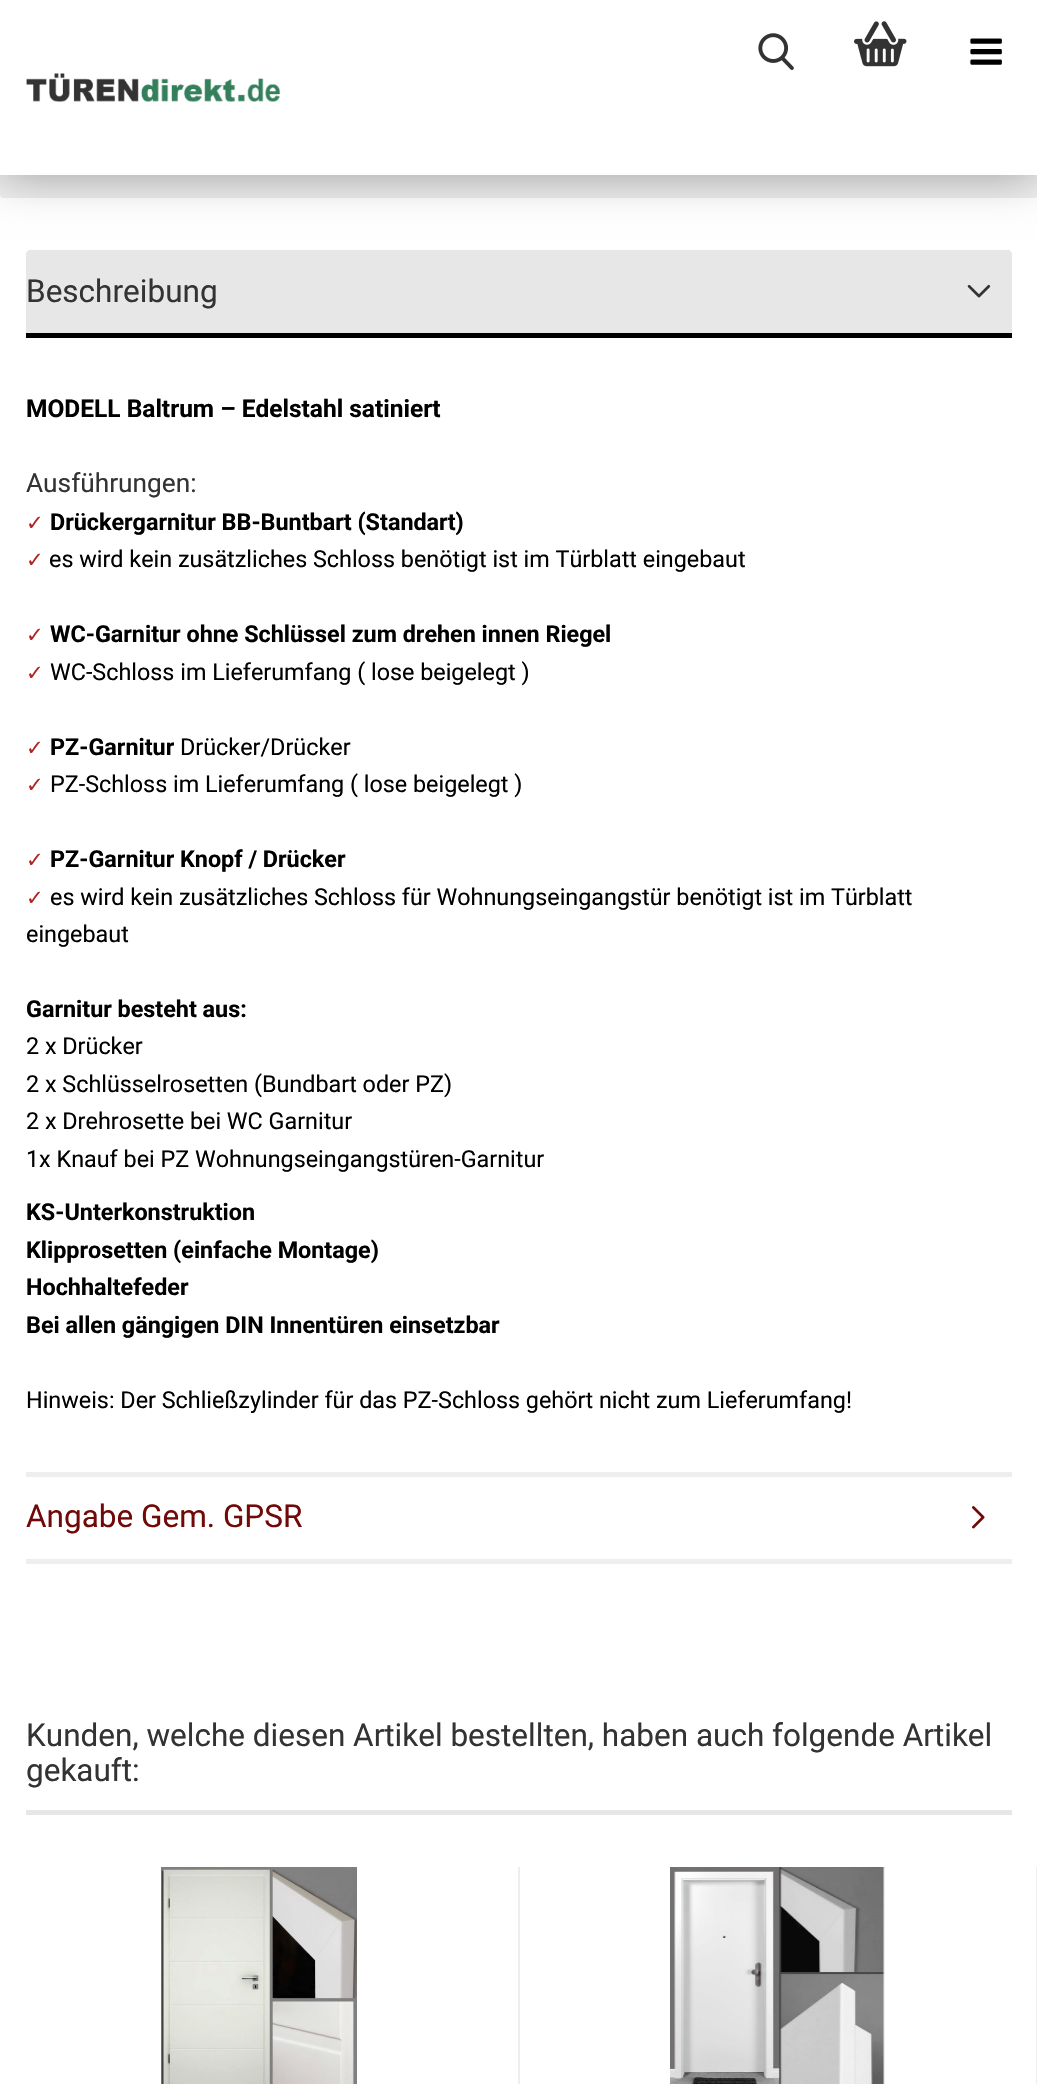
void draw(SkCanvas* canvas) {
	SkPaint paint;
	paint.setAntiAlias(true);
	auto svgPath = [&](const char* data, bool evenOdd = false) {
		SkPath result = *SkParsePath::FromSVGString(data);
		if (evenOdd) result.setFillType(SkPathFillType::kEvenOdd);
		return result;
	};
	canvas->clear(0xffffffff);
	paint.setColor(0xffeeeeee);
	canvas->drawRoundRect(SkRect::MakeXYWH(0, -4, 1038, 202), 4, 4, paint);
	paint.setColor(0x59000000);
	paint.setMaskFilter(SkMaskFilter::MakeBlur(kNormal_SkBlurStyle, 22));
	canvas->drawRect(SkRect::MakeXYWH(0, 0, 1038, 175), paint);
	paint.setMaskFilter(nullptr);
	paint.setColor(0xffffffff);
	canvas->drawRect(SkRect::MakeXYWH(0, 0, 1037, 175), paint);
	canvas->drawImageRect(SkImages::DeferredFromEncodedData(SkData::MakeFromFileName("img1.png")), SkRect::MakeXYWH(758, 33, 36, 37), SkSamplingOptions());
	canvas->drawImageRect(SkImages::DeferredFromEncodedData(SkData::MakeFromFileName("img2.png")), SkRect::MakeXYWH(854, 21, 53, 46), SkSamplingOptions());
	canvas->drawImageRect(SkImages::DeferredFromEncodedData(SkData::MakeFromFileName("img3.png")), SkRect::MakeXYWH(970, 38, 32, 27), SkSamplingOptions());
	canvas->drawImageRect(SkImages::DeferredFromEncodedData(SkData::MakeFromFileName("img4.png")), SkRect::MakeXYWH(26, 73, 254, 29), SkSamplingOptions());
	paint.setColor(0xffe7e7e7);
	canvas->drawPath(svgPath("M30 250H1008C1010 250 1012 252 1012 254V338H26V254C26 252 28 250 30 250Z"), paint);
	paint.setColor(0xff000000);
	canvas->drawRect(SkRect::MakeXYWH(26, 333, 986, 5), paint);
	SkFont f1(fontMgr->matchFamilyStyle("Roboto", SkFontStyle::Normal()), 31.5);
	f1.setSubpixel(true);
	paint.setColor(0xff333333);
	canvas->drawString("Beschreibung", 26, 302, f1, paint);
	canvas->drawImageRect(SkImages::DeferredFromEncodedData(SkData::MakeFromFileName("img5.png")), SkRect::MakeXYWH(967, 284, 24, 14), SkSamplingOptions());
	paint.setColor(0xffeeeeee);
	canvas->drawRect(SkRect::MakeXYWH(26, 1472, 986, 5), paint);
	SkFont f2(fontMgr->matchFamilyStyle("Roboto", SkFontStyle::Bold()), 24.5);
	f2.setSubpixel(true);
	paint.setColor(0xff000000);
	canvas->drawString("MODELL Baltrum – Edelstahl satiniert", 26, 417, f2, paint);
	SkFont f3(fontMgr->matchFamilyStyle("Roboto", SkFontStyle::Normal()), 26.25);
	f3.setSubpixel(true);
	paint.setColor(0xff333333);
	canvas->drawString("Ausführungen:", 26, 492, f3, paint);
	SkFont f4(fontMgr->matchFamilyStyle("DejaVu Sans", SkFontStyle::Normal()), 21);
	f4.setSubpixel(true);
	paint.setColor(0xffb22222);
	canvas->drawString("✓", 26, 530, f4, paint);
	SkFont f5(fontMgr->matchFamilyStyle("Roboto", SkFontStyle::Bold()), 23.35);
	f5.setSubpixel(true);
	paint.setColor(0xff000000);
	canvas->drawString("Drückergarnitur BB-Buntbart (Standart)", 50, 530, f5, paint);
	paint.setColor(0xffb22222);
	canvas->drawString("✓", 26, 567, f4, paint);
	SkFont f6(fontMgr->matchFamilyStyle("Roboto", SkFontStyle::Normal()), 23.35);
	f6.setSubpixel(true);
	paint.setColor(0xff000000);
	canvas->drawString("es wird kein zusätzliches Schloss benötigt ist im Türblatt eingebaut", 49, 567, f6, paint);
	paint.setColor(0xffb22222);
	canvas->drawString("✓", 26, 642, f4, paint);
	paint.setColor(0xff000000);
	canvas->drawString("WC-Garnitur ohne Schlüssel zum drehen innen Riegel", 50, 642, f5, paint);
	paint.setColor(0xffb22222);
	canvas->drawString("✓", 26, 680, f4, paint);
	paint.setColor(0xff000000);
	canvas->drawString("WC-Schloss im Lieferumfang ( lose beigelegt )", 50, 680, f6, paint);
	paint.setColor(0xffb22222);
	canvas->drawString("✓", 26, 755, f4, paint);
	paint.setColor(0xff000000);
	canvas->drawString("PZ-Garnitur", 50, 755, f5, paint);
	canvas->drawString("Drücker/Drücker", 180, 755, f6, paint);
	paint.setColor(0xffb22222);
	canvas->drawString("✓", 26, 792, f4, paint);
	paint.setColor(0xff000000);
	canvas->drawString("PZ-Schloss im Lieferumfang ( lose beigelegt )", 50, 792, f6, paint);
	paint.setColor(0xffb22222);
	canvas->drawString("✓", 26, 867, f4, paint);
	paint.setColor(0xff000000);
	canvas->drawString("PZ-Garnitur Knopf / Drücker", 50, 867, f5, paint);
	paint.setColor(0xffb22222);
	canvas->drawString("✓", 26, 905, f4, paint);
	paint.setColor(0xff000000);
	canvas->drawString("es wird kein zusätzliches Schloss für Wohnungseingangstür benötigt ist im Türblatt", 50, 905, f6, paint);
	canvas->drawString("eingebaut", 26, 942, f6, paint);
	canvas->drawString("Garnitur besteht aus:", 26, 1017, f5, paint);
	canvas->drawString("2 x Drücker", 26, 1054, f6, paint);
	canvas->drawString("2 x Schlüsselrosetten (Bundbart oder PZ)", 26, 1092, f6, paint);
	canvas->drawString("2 x Drehrosette bei WC Garnitur", 26, 1129, f6, paint);
	canvas->drawString("1x Knauf bei PZ Wohnungseingangstüren-Garnitur", 26, 1167, f6, paint);
	canvas->drawString("KS-Unterkonstruktion", 26, 1220, f5, paint);
	canvas->drawString("Klipprosetten (einfache Montage)", 26, 1258, f5, paint);
	canvas->drawString("Hochhaltefeder", 26, 1295, f5, paint);
	canvas->drawString("Bei allen gängigen DIN Innentüren einsetzbar", 26, 1333, f5, paint);
	canvas->drawString("Hinweis: Der Schließzylinder für das PZ-Schloss gehört nicht zum Lieferumfang!", 26, 1408, f6, paint);
	paint.setColor(0xffeeeeee);
	canvas->drawRect(SkRect::MakeXYWH(26, 1559, 986, 5), paint);
	paint.setColor(0xff720909);
	canvas->drawString("Angabe Gem. GPSR", 26, 1527, f1, paint);
	canvas->drawImageRect(SkImages::DeferredFromEncodedData(SkData::MakeFromFileName("img6.png")), SkRect::MakeXYWH(972, 1506, 13, 23), SkSamplingOptions());
	paint.setColor(0xffe7e7e7);
	canvas->drawRect(SkRect::MakeXYWH(26, 1810, 986, 5), paint);
	paint.setColor(0xff333333);
	canvas->drawString("Kunden, welche diesen Artikel bestellten, haben auch folgende Artikel", 26, 1746, f1, paint);
	canvas->drawString("gekauft:", 26, 1781, f1, paint);
	paint.setColor(0xffeeeeee);
	canvas->drawRect(SkRect::MakeXYWH(518, 1867, 2, 217), paint);
	canvas->drawImageRect(SkImages::DeferredFromEncodedData(SkData::MakeFromFileName("img7.png")), SkRect::MakeXYWH(161, 1867, 196, 217), SkSamplingOptions());
	canvas->drawRect(SkRect::MakeXYWH(1036, 1867, 1, 217), paint);
	canvas->drawImageRect(SkImages::DeferredFromEncodedData(SkData::MakeFromFileName("img8.png")), SkRect::MakeXYWH(670, 1867, 215, 217), SkSamplingOptions());
}
